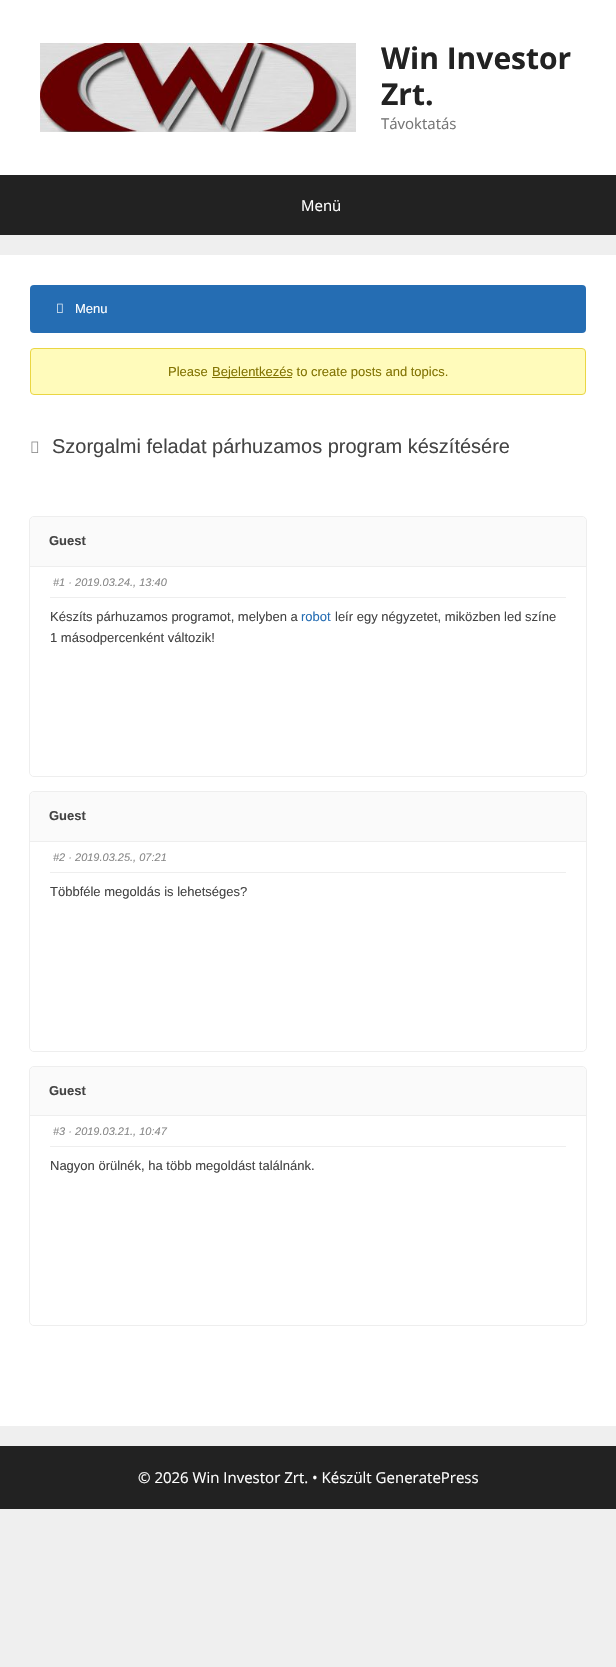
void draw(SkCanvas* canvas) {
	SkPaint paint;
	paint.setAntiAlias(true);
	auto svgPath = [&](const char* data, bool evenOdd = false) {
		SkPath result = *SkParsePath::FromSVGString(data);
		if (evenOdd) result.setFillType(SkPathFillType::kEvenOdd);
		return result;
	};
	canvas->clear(0xffefefef);
	paint.setColor(0xffffffff);
	canvas->drawRect(SkRect::MakeXYWH(0, 0, 616, 175), paint);
	canvas->drawImageRect(SkImages::DeferredFromEncodedData(SkData::MakeFromFileName("img1.png")), SkRect::MakeXYWH(40, 43, 316, 89), SkSamplingOptions());
	SkFont f1(fontMgr->matchFamilyStyle("Open Sans", SkFontStyle::Bold()), 30);
	f1.setSubpixel(true);
	paint.setColor(0xff222222);
	canvas->drawString("Win Investor", 381, 69, f1, paint);
	canvas->drawString("Zrt.", 381, 105, f1, paint);
	SkFont f2(fontMgr->matchFamilyStyle("Open Sans", SkFontStyle::Normal()), 15);
	f2.setSubpixel(true);
	paint.setColor(0xff757575);
	canvas->drawString("Távoktatás", 381, 129, f2, paint);
	paint.setColor(0xff222222);
	canvas->drawRect(SkRect::MakeXYWH(0, 175, 616, 60), paint);
	paint.setColor(0xffffffff);
	canvas->drawString("Menü", 301, 211, f2, paint);
	canvas->drawRect(SkRect::MakeXYWH(0, 255, 616, 1171), paint);
	paint.setColor(0xff256db3);
	canvas->drawRoundRect(SkRect::MakeXYWH(30, 285, 556, 48), 4, 4, paint);
	canvas->drawImageRect(SkImages::DeferredFromEncodedData(SkData::MakeFromFileName("img2.png")), SkRect::MakeXYWH(57, 303, 6, 10), SkSamplingOptions());
	SkFont f3(fontMgr->matchFamilyStyle("Liberation Sans", SkFontStyle::Normal()), 13);
	f3.setSubpixel(true);
	paint.setColor(0xffffffff);
	canvas->drawString("Menu", 75, 313, f3, paint);
	paint.setColor(0xfffffbbb);
	canvas->drawRoundRect(SkRect::MakeXYWH(30.5, 348.5, 555, 46), 3.5, 3.5, paint);
	paint.setStroke(true);
	paint.setStrokeWidth(1);
	paint.setColor(0xffead643);
	canvas->drawRoundRect(SkRect::MakeXYWH(30.5, 348.5, 555, 46), 3.5, 3.5, paint);
	paint.setStroke(false);
	paint.setColor(0xff827302);
	canvas->drawString("Please", 168, 376, f3, paint);
	canvas->drawRect(SkRect::MakeXYWH(212, 377, 80, 1), paint);
	canvas->drawString("Bejelentkezés to create posts and topics.", 212, 376, f3, paint);
	canvas->drawImageRect(SkImages::DeferredFromEncodedData(SkData::MakeFromFileName("img3.png")), SkRect::MakeXYWH(31, 441, 8, 12), SkSamplingOptions());
	SkFont f4(fontMgr->matchFamilyStyle("Liberation Sans", SkFontStyle::Normal()), 20);
	f4.setSubpixel(true);
	paint.setColor(0xff444444);
	canvas->drawString("Szorgalmi feladat párhuzamos program készítésére", 52, 453, f4, paint);
	paint.setStroke(true);
	paint.setColor(0xffeeeeee);
	canvas->drawRoundRect(SkRect::MakeXYWH(29.5, 516.5, 557, 260), 4.5, 4.5, paint);
	paint.setStroke(false);
	paint.setColor(0xfffafafa);
	canvas->drawPath(svgPath("M34 517H582C584 517 586 519 586 521V567H30V521C30 519 32 517 34 517Z"), paint);
	paint.setColor(0xffeeeeee);
	canvas->drawRect(SkRect::MakeXYWH(30, 566, 556, 1), paint);
	SkFont f5(fontMgr->matchFamilyStyle("Liberation Sans", SkFontStyle::Bold()), 13);
	f5.setSubpixel(true);
	paint.setColor(0xff444444);
	canvas->drawString("Guest", 49, 545, f5, paint);
	paint.setColor(0xffffffff);
	canvas->drawPath(svgPath("M30 567H586V772C586 774 584 776 582 776H34C32 776 30 774 30 772Z"), paint);
	paint.setColor(0xffeeeeee);
	canvas->drawRect(SkRect::MakeXYWH(50, 597, 516, 1), paint);
	SkFont f6(fontMgr->matchFamilyStyle("Liberation Sans", SkFontStyle::Italic()), 11);
	f6.setSubpixel(true);
	paint.setColor(0xff888888);
	canvas->drawString("#1 · 2019.03.24., 13:40", 53, 586, f6, paint);
	paint.setColor(0xff444444);
	canvas->drawString("Készíts párhuzamos programot, melyben a", 50, 621, f3, paint);
	paint.setColor(0xff256db3);
	canvas->drawString("robot", 301, 621, f3, paint);
	paint.setColor(0xff444444);
	canvas->drawString("leír egy négyzetet, miközben led színe", 335, 621, f3, paint);
	canvas->drawString("1 másodpercenként változik!", 50, 642, f3, paint);
	paint.setStroke(true);
	paint.setColor(0xffeeeeee);
	canvas->drawRoundRect(SkRect::MakeXYWH(29.5, 791.5, 557, 260), 4.5, 4.5, paint);
	paint.setStroke(false);
	paint.setColor(0xfffafafa);
	canvas->drawPath(svgPath("M34 792H582C584 792 586 794 586 796V842H30V796C30 794 32 792 34 792Z"), paint);
	paint.setColor(0xffeeeeee);
	canvas->drawRect(SkRect::MakeXYWH(30, 841, 556, 1), paint);
	paint.setColor(0xff444444);
	canvas->drawString("Guest", 49, 820, f5, paint);
	paint.setColor(0xffffffff);
	canvas->drawPath(svgPath("M30 842H586V1047C586 1049 584 1051 582 1051H34C32 1051 30 1049 30 1047Z"), paint);
	paint.setColor(0xffeeeeee);
	canvas->drawRect(SkRect::MakeXYWH(50, 872, 516, 1), paint);
	paint.setColor(0xff888888);
	canvas->drawString("#2 · 2019.03.25., 07:21", 53, 861, f6, paint);
	paint.setColor(0xff444444);
	canvas->drawString("Többféle megoldás is lehetséges?", 50, 896, f3, paint);
	paint.setStroke(true);
	paint.setColor(0xffeeeeee);
	canvas->drawRoundRect(SkRect::MakeXYWH(29.5, 1066.5, 557, 259), 4.5, 4.5, paint);
	paint.setStroke(false);
	paint.setColor(0xfffafafa);
	canvas->drawPath(svgPath("M34 1067H582C584 1067 586 1069 586 1071V1116H30V1071C30 1069 32 1067 34 1067Z"), paint);
	paint.setColor(0xffeeeeee);
	canvas->drawRect(SkRect::MakeXYWH(30, 1115, 556, 1), paint);
	paint.setColor(0xff444444);
	canvas->drawString("Guest", 49, 1095, f5, paint);
	paint.setColor(0xffffffff);
	canvas->drawPath(svgPath("M30 1116H586V1321C586 1323 584 1325 582 1325H34C32 1325 30 1323 30 1321Z"), paint);
	paint.setColor(0xffeeeeee);
	canvas->drawRect(SkRect::MakeXYWH(50, 1146, 516, 1), paint);
	paint.setColor(0xff888888);
	canvas->drawString("#3 · 2019.03.21., 10:47", 53, 1135, f6, paint);
	paint.setColor(0xff444444);
	canvas->drawString("Nagyon örülnék, ha több megoldást találnánk.", 50, 1170, f3, paint);
	paint.setColor(0xff222222);
	canvas->drawRect(SkRect::MakeXYWH(0, 1446, 616, 63), paint);
	paint.setColor(0xffffffff);
	canvas->drawString("© 2026 Win Investor Zrt. • Készült GeneratePress", 138, 1483, f2, paint);
}
